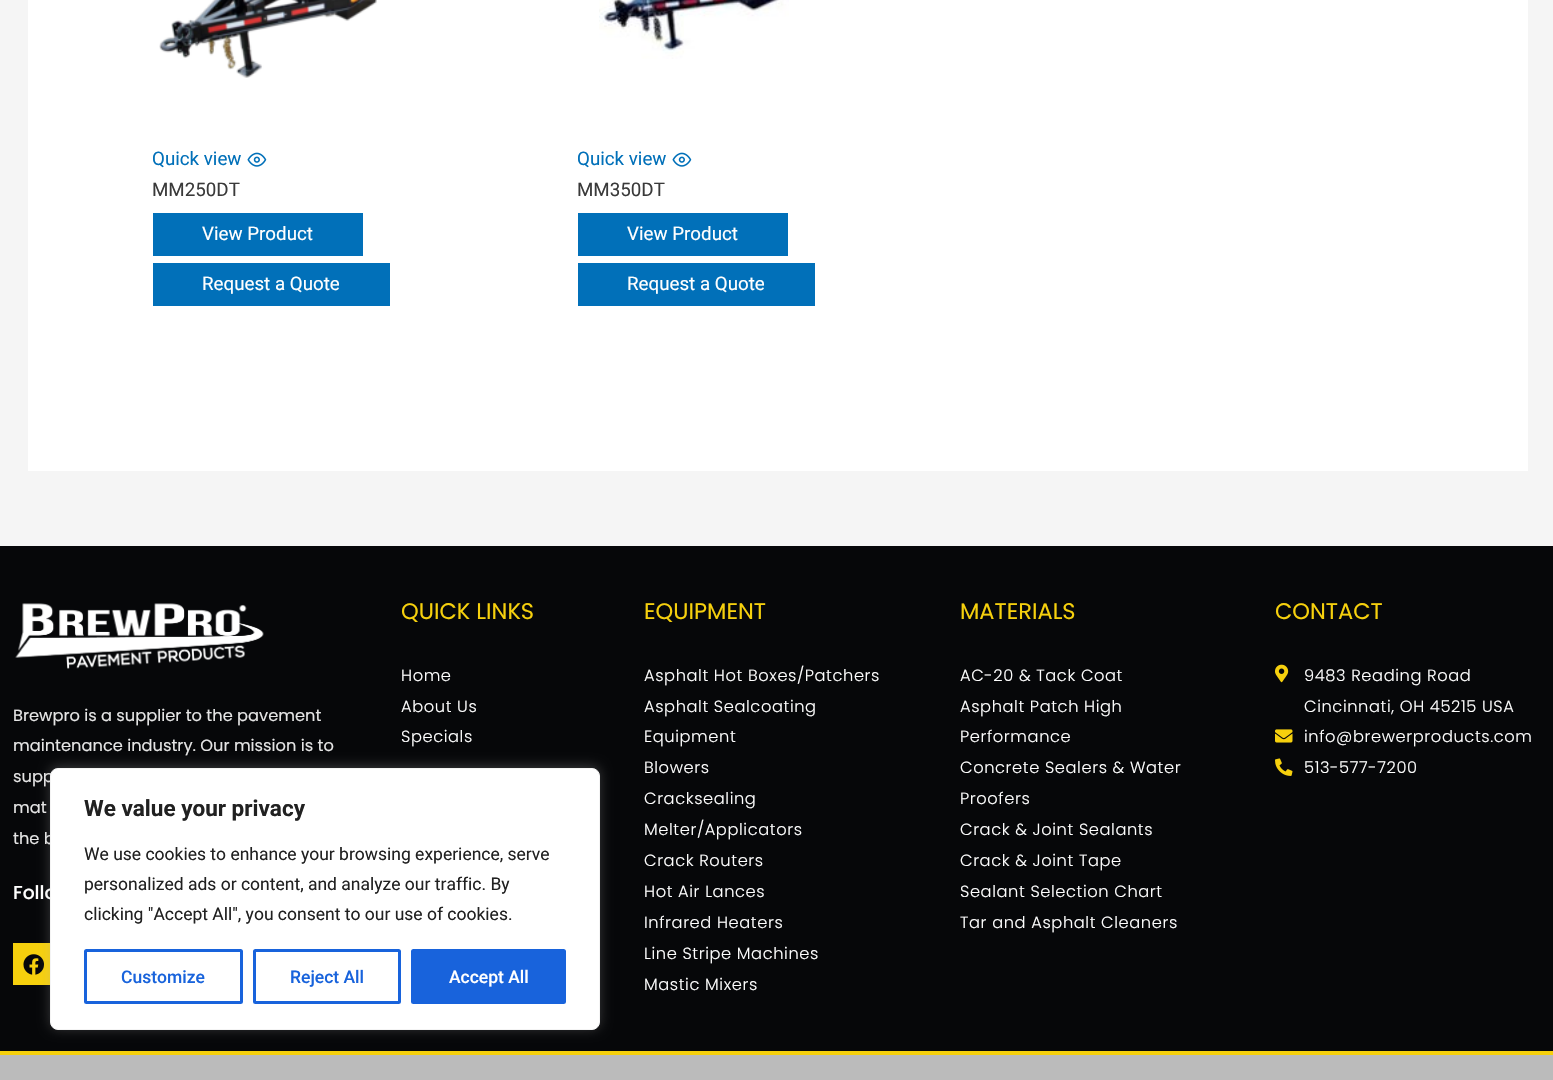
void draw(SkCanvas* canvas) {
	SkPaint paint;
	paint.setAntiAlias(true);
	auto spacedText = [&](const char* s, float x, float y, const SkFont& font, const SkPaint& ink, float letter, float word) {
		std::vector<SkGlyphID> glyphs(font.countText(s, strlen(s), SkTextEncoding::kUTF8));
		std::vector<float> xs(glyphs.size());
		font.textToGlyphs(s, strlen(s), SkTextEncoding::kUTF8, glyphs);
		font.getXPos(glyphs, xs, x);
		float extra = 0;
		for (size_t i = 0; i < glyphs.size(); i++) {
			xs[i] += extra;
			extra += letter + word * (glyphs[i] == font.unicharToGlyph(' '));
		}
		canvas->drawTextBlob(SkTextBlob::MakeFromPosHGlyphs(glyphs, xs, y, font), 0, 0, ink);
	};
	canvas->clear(0xfff5f5f5);
	paint.setColor(0xffffffff);
	canvas->drawRect(SkRect::MakeXYWH(28, 0, 1500, 471), paint);
	canvas->drawImageRect(SkImages::DeferredFromEncodedData(SkData::MakeFromFileName("img1.png")), SkRect::MakeXYWH(159, 0, 218, 78), SkSamplingOptions());
	SkFont f1(fontMgr->matchFamilyStyle("Roboto", SkFontStyle::Normal()), 18.75);
	f1.setSubpixel(true);
	paint.setColor(0xff0170b9);
	canvas->drawString("Quick view", 152, 165, f1, paint);
	canvas->drawImageRect(SkImages::DeferredFromEncodedData(SkData::MakeFromFileName("img2.png")), SkRect::MakeXYWH(247, 152, 20, 15), SkSamplingOptions());
	paint.setColor(0xff3a3a3a);
	canvas->drawString("MM250DT", 152, 196, f1, paint);
	paint.setColor(0xff0170b9);
	canvas->drawRect(SkRect::MakeXYWH(153, 213, 210, 43), paint);
	paint.setColor(0xffffffff);
	canvas->drawString("View Product", 202, 240, f1, paint);
	paint.setColor(0xff0170b9);
	canvas->drawRect(SkRect::MakeXYWH(153, 263, 237, 43), paint);
	paint.setColor(0xffffffff);
	canvas->drawString("Request a Quote", 202, 290, f1, paint);
	canvas->drawImageRect(SkImages::DeferredFromEncodedData(SkData::MakeFromFileName("img3.png")), SkRect::MakeXYWH(599, 0, 190, 59), SkSamplingOptions());
	paint.setColor(0xff0170b9);
	canvas->drawString("Quick view", 577, 165, f1, paint);
	canvas->drawImageRect(SkImages::DeferredFromEncodedData(SkData::MakeFromFileName("img2.png")), SkRect::MakeXYWH(672, 152, 20, 15), SkSamplingOptions());
	paint.setColor(0xff3a3a3a);
	canvas->drawString("MM350DT", 577, 196, f1, paint);
	paint.setColor(0xff0170b9);
	canvas->drawRect(SkRect::MakeXYWH(578, 213, 210, 43), paint);
	paint.setColor(0xffffffff);
	canvas->drawString("View Product", 627, 240, f1, paint);
	paint.setColor(0xff0170b9);
	canvas->drawRect(SkRect::MakeXYWH(578, 263, 237, 43), paint);
	paint.setColor(0xffffffff);
	canvas->drawString("Request a Quote", 627, 290, f1, paint);
	paint.setColor(0xff060709);
	canvas->drawRect(SkRect::MakeXYWH(0, 546, 1553, 505), paint);
	paint.setColor(0xfff6d00d);
	canvas->drawRect(SkRect::MakeXYWH(0, 1051, 1553, 4), paint);
	SkFont f2(fontMgr->matchFamilyStyle("Poppins", SkFontStyle::Normal()), 22.5);
	f2.setSubpixel(true);
	canvas->drawString("QUICK LINKS", 401, 619, f2, paint);
	SkFont f3(fontMgr->matchFamilyStyle("Poppins", SkFontStyle(300, SkFontStyle::kNormal_Width, SkFontStyle::kUpright_Slant)), 16.25);
	f3.setSubpixel(true);
	paint.setColor(0xffffffff);
	spacedText("Home", 401, 681, f3, paint, 0.6, 0);
	spacedText("About Us", 401, 712, f3, paint, 0.6, 0);
	spacedText("Specials", 401, 742, f3, paint, 0.6, 0);
	paint.setColor(0xfff6d00d);
	canvas->drawString("EQUIPMENT", 644, 619, f2, paint);
	paint.setColor(0xffffffff);
	spacedText("Asphalt Hot Boxes/Patchers", 644, 681, f3, paint, 0.6, 0);
	spacedText("Asphalt Sealcoating", 644, 712, f3, paint, 0.6, 0);
	spacedText("Equipment", 644, 742, f3, paint, 0.6, 0);
	spacedText("Blowers", 644, 773, f3, paint, 0.6, 0);
	spacedText("Cracksealing", 644, 804, f3, paint, 0.6, 0);
	spacedText("Melter/Applicators", 644, 835, f3, paint, 0.6, 0);
	spacedText("Crack Routers", 644, 866, f3, paint, 0.6, 0);
	spacedText("Hot Air Lances", 644, 897, f3, paint, 0.6, 0);
	spacedText("Infrared Heaters", 644, 928, f3, paint, 0.6, 0);
	spacedText("Line Stripe Machines", 644, 959, f3, paint, 0.6, 0);
	spacedText("Mastic Mixers", 644, 990, f3, paint, 0.6, 0);
	paint.setColor(0xfff6d00d);
	canvas->drawString("MATERIALS", 960, 619, f2, paint);
	paint.setColor(0xffffffff);
	spacedText("AC-20 & Tack Coat", 960, 681, f3, paint, 0.6, 0);
	spacedText("Asphalt Patch High", 960, 712, f3, paint, 0.6, 0);
	spacedText("Performance", 960, 742, f3, paint, 0.6, 0);
	spacedText("Concrete Sealers & Water", 960, 773, f3, paint, 0.6, 0);
	spacedText("Proofers", 960, 804, f3, paint, 0.6, 0);
	spacedText("Crack & Joint Sealants", 960, 835, f3, paint, 0.6, 0);
	spacedText("Crack & Joint Tape", 960, 866, f3, paint, 0.6, 0);
	spacedText("Sealant Selection Chart", 960, 897, f3, paint, 0.6, 0);
	spacedText("Tar and Asphalt Cleaners", 960, 928, f3, paint, 0.6, 0);
	paint.setColor(0xfff6d00d);
	canvas->drawString("CONTACT", 1275, 619, f2, paint);
	canvas->drawImageRect(SkImages::DeferredFromEncodedData(SkData::MakeFromFileName("img4.png")), SkRect::MakeXYWH(1275, 664, 14, 19), SkSamplingOptions());
	paint.setColor(0xffffffff);
	spacedText("9483 Reading Road", 1304, 681, f3, paint, 0.6, 0);
	spacedText("Cincinnati, OH 45215 USA", 1304, 712, f3, paint, 0.6, 0);
	canvas->drawImageRect(SkImages::DeferredFromEncodedData(SkData::MakeFromFileName("img5.png")), SkRect::MakeXYWH(1275, 729, 18, 14), SkSamplingOptions());
	spacedText("info@brewerproducts.com", 1304, 742, f3, paint, 0.6, 0);
	canvas->drawImageRect(SkImages::DeferredFromEncodedData(SkData::MakeFromFileName("img6.png")), SkRect::MakeXYWH(1275, 758, 18, 18), SkSamplingOptions());
	spacedText("513-577-7200", 1304, 773, f3, paint, 0.6, 0);
	canvas->drawImageRect(SkImages::DeferredFromEncodedData(SkData::MakeFromFileName("img7.png")), SkRect::MakeXYWH(15, 603, 249, 66), SkSamplingOptions());
	SkFont f4(fontMgr->matchFamilyStyle("Poppins", SkFontStyle::Normal()), 16.25);
	f4.setSubpixel(true);
	paint.setColor(0xffe5e5e5);
	canvas->drawString("Brewpro is a supplier to the pavement", 13, 721, f4, paint);
	canvas->drawString("maintenance industry. Our mission is to", 13, 751, f4, paint);
	canvas->drawString("supp", 13, 782, f4, paint);
	canvas->drawString("mat", 13, 813, f4, paint);
	canvas->drawString("the b", 13, 844, f4, paint);
	SkFont f5(fontMgr->matchFamilyStyle("Poppins", SkFontStyle(500, SkFontStyle::kNormal_Width, SkFontStyle::kUpright_Slant)), 18.75);
	f5.setSubpixel(true);
	paint.setColor(0xffffffff);
	canvas->drawString("Follo", 13, 899, f5, paint);
	paint.setColor(0xfff6d00d);
	canvas->drawRect(SkRect::MakeXYWH(13, 943, 37, 42), paint);
	canvas->drawImageRect(SkImages::DeferredFromEncodedData(SkData::MakeFromFileName("img8.png")), SkRect::MakeXYWH(23, 954, 21, 21), SkSamplingOptions());
	paint.setColor(0xffbbbbbb);
	canvas->drawRect(SkRect::MakeXYWH(0, 1055, 1553, 25), paint);
	paint.setColor(0x4dacabab);
	paint.setMaskFilter(SkMaskFilter::MakeBlur(kNormal_SkBlurStyle, 6));
	canvas->drawRoundRect(SkRect::MakeXYWH(50, 766, 550, 263), 8, 8, paint);
	paint.setMaskFilter(nullptr);
	paint.setColor(0xffffffff);
	canvas->drawRoundRect(SkRect::MakeXYWH(50.5, 768.5, 549, 261), 7.5, 7.5, paint);
	paint.setStroke(true);
	paint.setStrokeWidth(1);
	paint.setColor(0xfff4f4f4);
	canvas->drawRoundRect(SkRect::MakeXYWH(50.5, 768.5, 549, 261), 7.5, 7.5, paint);
	SkFont f6(fontMgr->matchFamilyStyle("Roboto", SkFontStyle::Bold()), 22.5);
	f6.setSubpixel(true);
	paint.setStroke(false);
	paint.setColor(0xff212121);
	canvas->drawString("We value your privacy", 84, 816, f6, paint);
	SkFont f7(fontMgr->matchFamilyStyle("Roboto", SkFontStyle::Normal()), 17.5);
	f7.setSubpixel(true);
	canvas->drawString("We use cookies to enhance your browsing experience, serve", 84, 860, f7, paint);
	canvas->drawString("personalized ads or content, and analyze our traffic. By", 84, 890, f7, paint);
	canvas->drawString("clicking \"Accept All\", you consent to our use of cookies.", 84, 920, f7, paint);
	paint.setStroke(true);
	paint.setStrokeWidth(3);
	paint.setColor(0xff1863dc);
	canvas->drawRoundRect(SkRect::MakeXYWH(85.5, 950.5, 156, 52), 1, 1, paint);
	SkFont f8(fontMgr->matchFamilyStyle("Roboto", SkFontStyle(500, SkFontStyle::kNormal_Width, SkFontStyle::kUpright_Slant)), 17.5);
	f8.setSubpixel(true);
	paint.setStroke(false);
	canvas->drawString("Customize", 121, 983, f8, paint);
	paint.setStroke(true);
	canvas->drawRoundRect(SkRect::MakeXYWH(254.5, 950.5, 145, 52), 1, 1, paint);
	paint.setStroke(false);
	canvas->drawString("Reject All", 290, 983, f8, paint);
	canvas->drawRoundRect(SkRect::MakeXYWH(412.5, 950.5, 152, 52), 1, 1, paint);
	paint.setStroke(true);
	canvas->drawRoundRect(SkRect::MakeXYWH(412.5, 950.5, 152, 52), 1, 1, paint);
	paint.setStroke(false);
	paint.setColor(0xffffffff);
	canvas->drawString("Accept All", 449, 983, f8, paint);
}
